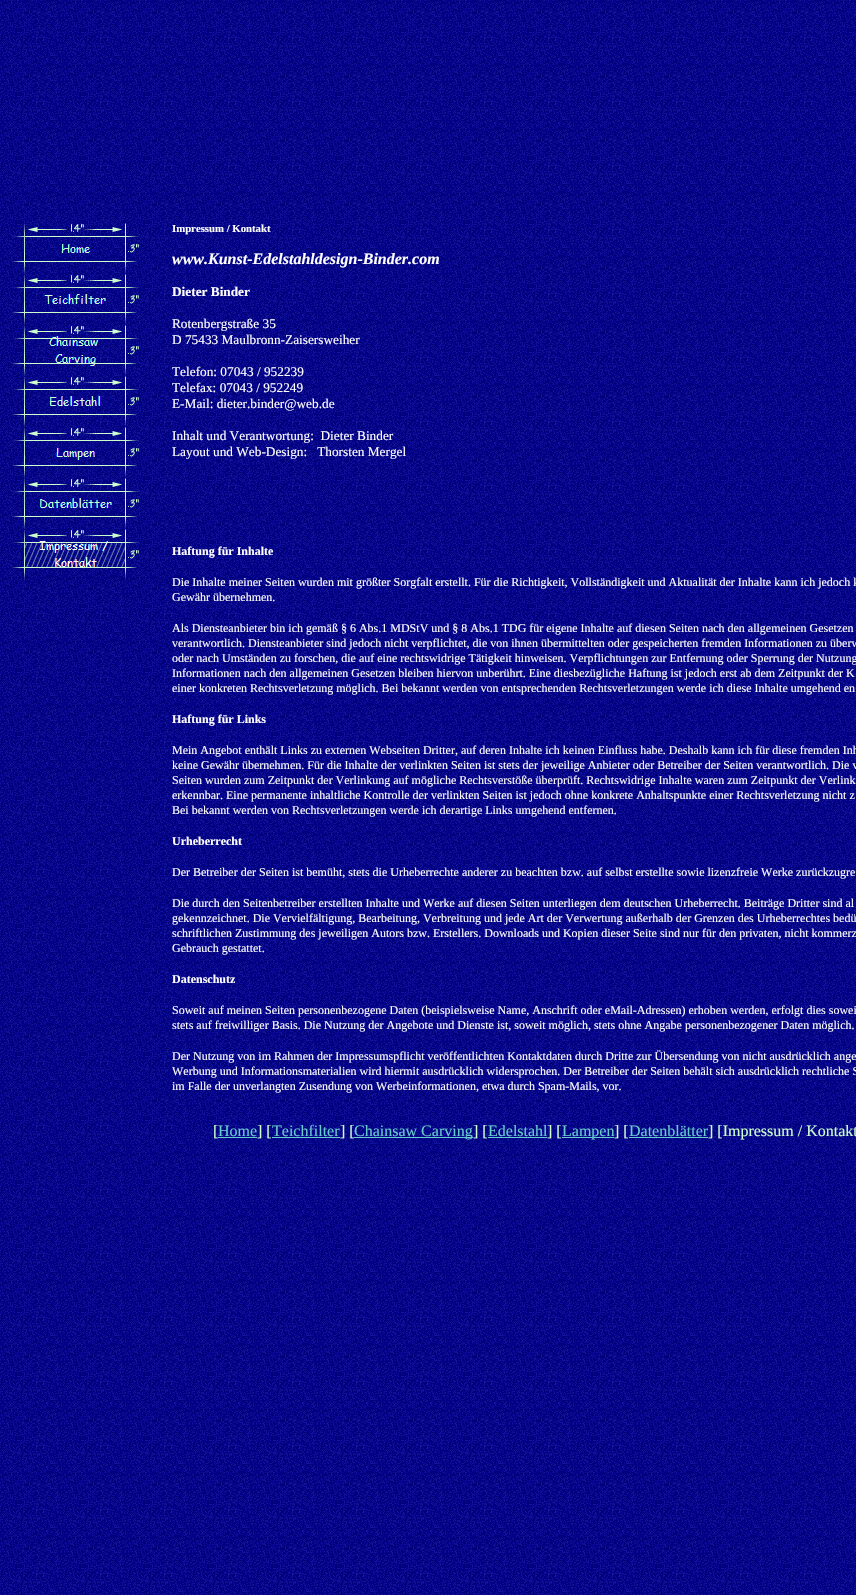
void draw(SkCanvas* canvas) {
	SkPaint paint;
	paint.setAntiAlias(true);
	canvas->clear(0xffffffff);
	canvas->drawImageRect(SkImages::DeferredFromEncodedData(SkData::MakeFromFileName("img1.png")), SkRect::MakeXYWH(0, 0, 856, 1595), SkSamplingOptions());
	canvas->drawImageRect(SkImages::DeferredFromEncodedData(SkData::MakeFromFileName("img2.png")), SkRect::MakeXYWH(12, 223, 127, 51), SkSamplingOptions());
	canvas->drawImageRect(SkImages::DeferredFromEncodedData(SkData::MakeFromFileName("img3.png")), SkRect::MakeXYWH(12, 274, 127, 51), SkSamplingOptions());
	canvas->drawImageRect(SkImages::DeferredFromEncodedData(SkData::MakeFromFileName("img4.png")), SkRect::MakeXYWH(12, 325, 127, 51), SkSamplingOptions());
	canvas->drawImageRect(SkImages::DeferredFromEncodedData(SkData::MakeFromFileName("img5.png")), SkRect::MakeXYWH(12, 376, 127, 51), SkSamplingOptions());
	canvas->drawImageRect(SkImages::DeferredFromEncodedData(SkData::MakeFromFileName("img6.png")), SkRect::MakeXYWH(12, 427, 127, 51), SkSamplingOptions());
	canvas->drawImageRect(SkImages::DeferredFromEncodedData(SkData::MakeFromFileName("img7.png")), SkRect::MakeXYWH(12, 478, 127, 51), SkSamplingOptions());
	canvas->drawImageRect(SkImages::DeferredFromEncodedData(SkData::MakeFromFileName("img8.png")), SkRect::MakeXYWH(12, 529, 127, 51), SkSamplingOptions());
	SkFont f1(fontMgr->matchFamilyStyle("Liberation Serif", SkFontStyle::Bold()), 10.75);
	f1.setSubpixel(true);
	paint.setColor(0xffffffff);
	canvas->drawString("Impressum / Kontakt", 172, 232, f1, paint);
	SkFont f2(fontMgr->matchFamilyStyle("Liberation Serif", SkFontStyle::BoldItalic()), 16);
	f2.setSubpixel(true);
	canvas->drawString("www.Kunst-Edelstahldesign-Binder.com", 172, 264, f2, paint);
	SkFont f3(fontMgr->matchFamilyStyle("Liberation Serif", SkFontStyle::Bold()), 13.3);
	f3.setSubpixel(true);
	canvas->drawString("Dieter Binder", 172, 296, f3, paint);
	SkFont f4(fontMgr->matchFamilyStyle("Liberation Serif", SkFontStyle::Normal()), 13.3);
	f4.setSubpixel(true);
	canvas->drawString("Rotenbergstraße 35", 172, 328, f4, paint);
	canvas->drawString("D 75433 Maulbronn-Zaisersweiher", 172, 344, f4, paint);
	canvas->drawString("Telefon: 07043 / 952239", 172, 376, f4, paint);
	canvas->drawString("Telefax: 07043 / 952249", 172, 392, f4, paint);
	canvas->drawString("E-Mail: dieter.binder@web.de", 172, 408, f4, paint);
	canvas->drawString("Inhalt und Verantwortung:  Dieter Binder", 172, 440, f4, paint);
	canvas->drawString("Layout und Web-Design:   Thorsten Mergel", 172, 456, f4, paint);
	SkFont f5(fontMgr->matchFamilyStyle("Liberation Serif", SkFontStyle::Bold()), 12);
	f5.setSubpixel(true);
	canvas->drawString("Haftung für Inhalte", 172, 555, f5, paint);
	SkFont f6(fontMgr->matchFamilyStyle("Liberation Serif", SkFontStyle::Normal()), 12);
	f6.setSubpixel(true);
	canvas->drawString("Die Inhalte meiner Seiten wurden mit größter Sorgfalt erstellt. Für die Richtigkeit, Vollständigkeit und Aktualität der Inhalte kann ich jedoch k", 172, 586, f6, paint);
	canvas->drawString("Gewähr übernehmen.", 172, 601, f6, paint);
	canvas->drawString("Als Diensteanbieter bin ich gemäß § 6 Abs.1 MDStV und § 8 Abs.1 TDG für eigene Inhalte auf diesen Seiten nach den allgemeinen Gesetzen", 172, 632, f6, paint);
	canvas->drawString("verantwortlich. Diensteanbieter sind jedoch nicht verpflichtet, die von ihnen übermittelten oder gespeicherten fremden Informationen zu überw", 172, 647, f6, paint);
	canvas->drawString("oder nach Umständen zu forschen, die auf eine rechtswidrige Tätigkeit hinweisen. Verpflichtungen zur Entfernung oder Sperrung der Nutzung", 172, 662, f6, paint);
	canvas->drawString("Informationen nach den allgemeinen Gesetzen bleiben hiervon unberührt. Eine diesbezügliche Haftung ist jedoch erst ab dem Zeitpunkt der K", 172, 677, f6, paint);
	canvas->drawString("einer konkreten Rechtsverletzung möglich. Bei bekannt werden von entsprechenden Rechtsverletzungen werde ich diese Inhalte umgehend en", 172, 692, f6, paint);
	canvas->drawString("Haftung für Links", 172, 723, f5, paint);
	canvas->drawString("Mein Angebot enthält Links zu externen Webseiten Dritter, auf deren Inhalte ich keinen Einfluss habe. Deshalb kann ich für diese fremden Inh", 172, 754, f6, paint);
	canvas->drawString("keine Gewähr übernehmen. Für die Inhalte der verlinkten Seiten ist stets der jeweilige Anbieter oder Betreiber der Seiten verantwortlich. Die v", 172, 769, f6, paint);
	canvas->drawString("Seiten wurden zum Zeitpunkt der Verlinkung auf mögliche Rechtsverstöße überprüft. Rechtswidrige Inhalte waren zum Zeitpunkt der Verlink", 172, 784, f6, paint);
	canvas->drawString("erkennbar. Eine permanente inhaltliche Kontrolle der verlinkten Seiten ist jedoch ohne konkrete Anhaltspunkte einer Rechtsverletzung nicht z", 172, 799, f6, paint);
	canvas->drawString("Bei bekannt werden von Rechtsverletzungen werde ich derartige Links umgehend entfernen.", 172, 814, f6, paint);
	canvas->drawString("Urheberrecht", 172, 845, f5, paint);
	canvas->drawString("Der Betreiber der Seiten ist bemüht, stets die Urheberrechte anderer zu beachten bzw. auf selbst erstellte sowie lizenzfreie Werke zurückzugre", 172, 876, f6, paint);
	canvas->drawString("Die durch den Seitenbetreiber erstellten Inhalte und Werke auf diesen Seiten unterliegen dem deutschen Urheberrecht. Beiträge Dritter sind al", 172, 907, f6, paint);
	canvas->drawString("gekennzeichnet. Die Vervielfältigung, Bearbeitung, Verbreitung und jede Art der Verwertung außerhalb der Grenzen des Urheberrechtes bedü", 172, 922, f6, paint);
	canvas->drawString("schriftlichen Zustimmung des jeweiligen Autors bzw. Erstellers. Downloads und Kopien dieser Seite sind nur für den privaten, nicht kommerz", 172, 937, f6, paint);
	canvas->drawString("Gebrauch gestattet.", 172, 952, f6, paint);
	canvas->drawString("Datenschutz", 172, 983, f5, paint);
	canvas->drawString("Soweit auf meinen Seiten personenbezogene Daten (beispielsweise Name, Anschrift oder eMail-Adressen) erhoben werden, erfolgt dies sowei", 172, 1014, f6, paint);
	canvas->drawString("stets auf freiwilliger Basis. Die Nutzung der Angebote und Dienste ist, soweit möglich, stets ohne Angabe personenbezogener Daten möglich.", 172, 1029, f6, paint);
	canvas->drawString("Der Nutzung von im Rahmen der Impressumspflicht veröffentlichten Kontaktdaten durch Dritte zur Übersendung von nicht ausdrücklich ange", 172, 1060, f6, paint);
	canvas->drawString("Werbung und Informationsmaterialien wird hiermit ausdrücklich widersprochen. Der Betreiber der Seiten behält sich ausdrücklich rechtliche S", 172, 1075, f6, paint);
	canvas->drawString("im Falle der unverlangten Zusendung von Werbeinformationen, etwa durch Spam-Mails, vor.", 172, 1090, f6, paint);
	SkFont f7(fontMgr->matchFamilyStyle("Liberation Serif", SkFontStyle::Normal()), 16);
	f7.setSubpixel(true);
	paint.setColor(0xffccffcc);
	canvas->drawString("[", 213, 1136, f7, paint);
	paint.setColor(0xff66cccc);
	canvas->drawString("Home", 218, 1136, f7, paint);
	canvas->drawRect(SkRect::MakeXYWH(218, 1137, 39, 1), paint);
	paint.setColor(0xffccffcc);
	canvas->drawString("] [", 257, 1136, f7, paint);
	paint.setColor(0xff66cccc);
	canvas->drawString("Teichfilter", 272, 1136, f7, paint);
	canvas->drawRect(SkRect::MakeXYWH(272, 1137, 68, 1), paint);
	paint.setColor(0xffccffcc);
	canvas->drawString("] [", 340, 1136, f7, paint);
	paint.setColor(0xff66cccc);
	canvas->drawRect(SkRect::MakeXYWH(354, 1137, 119, 1), paint);
	canvas->drawString("Chainsaw Carving", 354, 1136, f7, paint);
	paint.setColor(0xffccffcc);
	canvas->drawString("] [", 473, 1136, f7, paint);
	paint.setColor(0xff66cccc);
	canvas->drawString("Edelstahl", 488, 1136, f7, paint);
	canvas->drawRect(SkRect::MakeXYWH(488, 1137, 59, 1), paint);
	paint.setColor(0xffccffcc);
	canvas->drawString("] [", 547, 1136, f7, paint);
	paint.setColor(0xff66cccc);
	canvas->drawRect(SkRect::MakeXYWH(562, 1137, 52, 1), paint);
	canvas->drawString("Lampen", 562, 1136, f7, paint);
	paint.setColor(0xffccffcc);
	canvas->drawString("] [", 614, 1136, f7, paint);
	paint.setColor(0xff66cccc);
	canvas->drawString("Datenblätter", 629, 1136, f7, paint);
	canvas->drawRect(SkRect::MakeXYWH(629, 1137, 79, 1), paint);
	paint.setColor(0xffccffcc);
	canvas->drawString("] [Impressum / Kontakt", 708, 1136, f7, paint);
}
